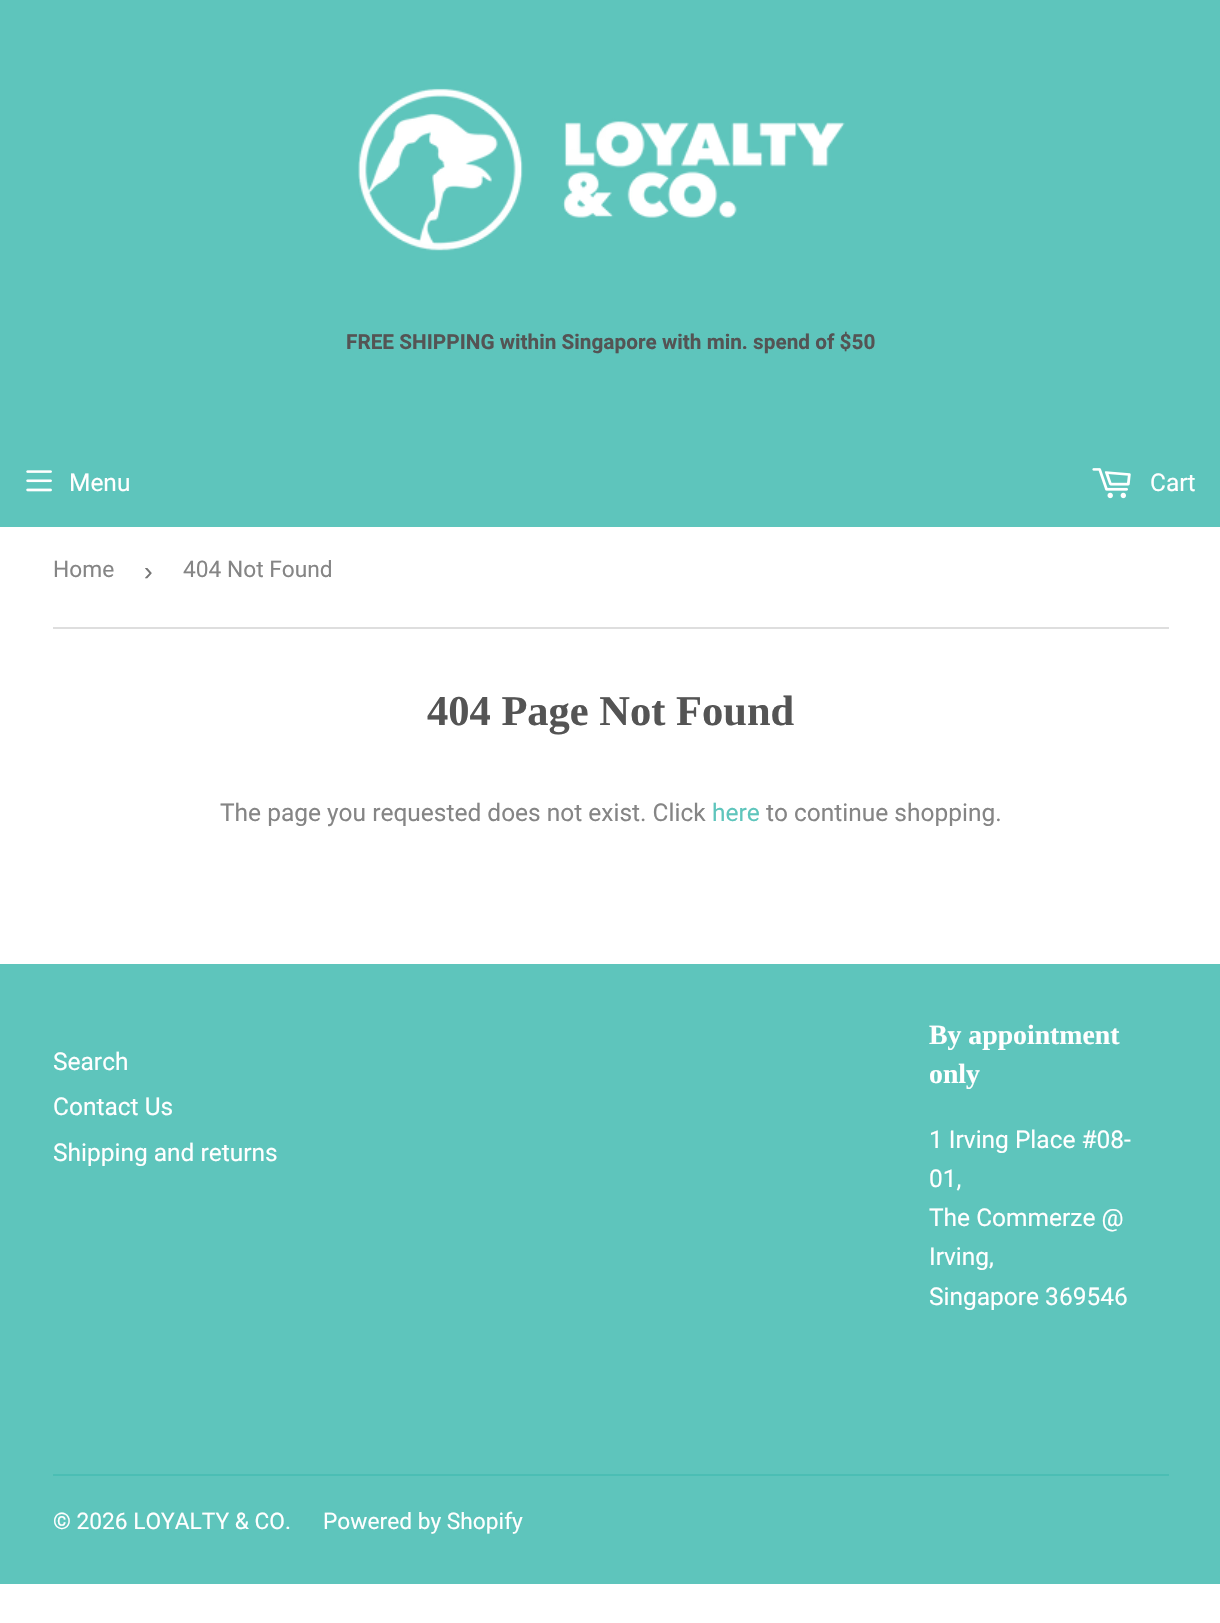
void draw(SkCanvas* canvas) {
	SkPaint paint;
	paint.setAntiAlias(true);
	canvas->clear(0xffffffff);
	paint.setColor(0xff5ec5bc);
	canvas->drawRect(SkRect::MakeXYWH(0, 0, 1220, 527), paint);
	canvas->drawImageRect(SkImages::DeferredFromEncodedData(SkData::MakeFromFileName("img1.png")), SkRect::MakeXYWH(358, 88, 487, 163), SkSamplingOptions());
	SkFont f1(fontMgr->matchFamilyStyle("Roboto", SkFontStyle::Bold()), 20.8);
	f1.setSubpixel(true);
	paint.setColor(0xff545454);
	canvas->drawString("FREE SHIPPING within Singapore with min. spend of $50", 346, 349, f1, paint);
	canvas->drawImageRect(SkImages::DeferredFromEncodedData(SkData::MakeFromFileName("img2.png")), SkRect::MakeXYWH(26, 470, 26, 22), SkSamplingOptions());
	SkFont f2(fontMgr->matchFamilyStyle("Roboto", SkFontStyle::Normal()), 24.5);
	f2.setSubpixel(true);
	paint.setColor(0xffffffff);
	canvas->drawString("Menu", 69, 491, f2, paint);
	canvas->drawImageRect(SkImages::DeferredFromEncodedData(SkData::MakeFromFileName("img3.png")), SkRect::MakeXYWH(1092, 468, 39, 31), SkSamplingOptions());
	canvas->drawString("Cart", 1150, 491, f2, paint);
	paint.setColor(0xffdedede);
	canvas->drawRect(SkRect::MakeXYWH(53, 627, 1116, 2), paint);
	SkFont f3(fontMgr->matchFamilyStyle("Roboto", SkFontStyle::Normal()), 22.75);
	f3.setSubpixel(true);
	paint.setColor(0xff858585);
	canvas->drawString("Home", 53, 577, f3, paint);
	SkFont f4(fontMgr->matchFamilyStyle("Liberation Sans", SkFontStyle::Normal()), 26);
	f4.setSubpixel(true);
	paint.setColor(0xff767676);
	canvas->drawString("›", 144, 580, f4, paint);
	paint.setColor(0xff858585);
	canvas->drawString("404 Not Found", 183, 577, f3, paint);
	SkFont f5(fontMgr->matchFamilyStyle("Liberation Serif", SkFontStyle::Bold()), 42.5);
	f5.setSubpixel(true);
	paint.setColor(0xff545454);
	canvas->drawString("404 Page Not Found", 427, 725, f5, paint);
	paint.setColor(0xff858585);
	canvas->drawString("The page you requested does not exist. Click", 220, 821, f2, paint);
	paint.setColor(0xff5ec5bc);
	canvas->drawString("here", 712, 821, f2, paint);
	paint.setColor(0xff858585);
	canvas->drawString("to continue shopping.", 766, 821, f2, paint);
	paint.setColor(0xff5ec5bc);
	canvas->drawRect(SkRect::MakeXYWH(0, 964, 1220, 620), paint);
	paint.setColor(0xffffffff);
	canvas->drawString("Search", 53, 1070, f2, paint);
	canvas->drawString("Contact Us", 53, 1115, f2, paint);
	canvas->drawString("Shipping and returns", 53, 1161, f2, paint);
	SkFont f6(fontMgr->matchFamilyStyle("Liberation Serif", SkFontStyle::Bold()), 27.75);
	f6.setSubpixel(true);
	canvas->drawString("By appointment", 929, 1044, f6, paint);
	canvas->drawString("only", 929, 1083, f6, paint);
	canvas->drawString("1 Irving Place #08-", 929, 1148, f2, paint);
	canvas->drawString("01,", 929, 1187, f2, paint);
	canvas->drawString("The Commerze @", 929, 1226, f2, paint);
	canvas->drawString("Irving,", 929, 1265, f2, paint);
	canvas->drawString("Singapore 369546", 929, 1305, f2, paint);
	paint.setColor(0xff4bbeb4);
	canvas->drawRect(SkRect::MakeXYWH(53, 1474, 1116, 2), paint);
	paint.setColor(0xffffffff);
	canvas->drawString("© 2026 LOYALTY & CO.", 53, 1529, f3, paint);
	canvas->drawString("Powered by Shopify", 323, 1529, f3, paint);
}
